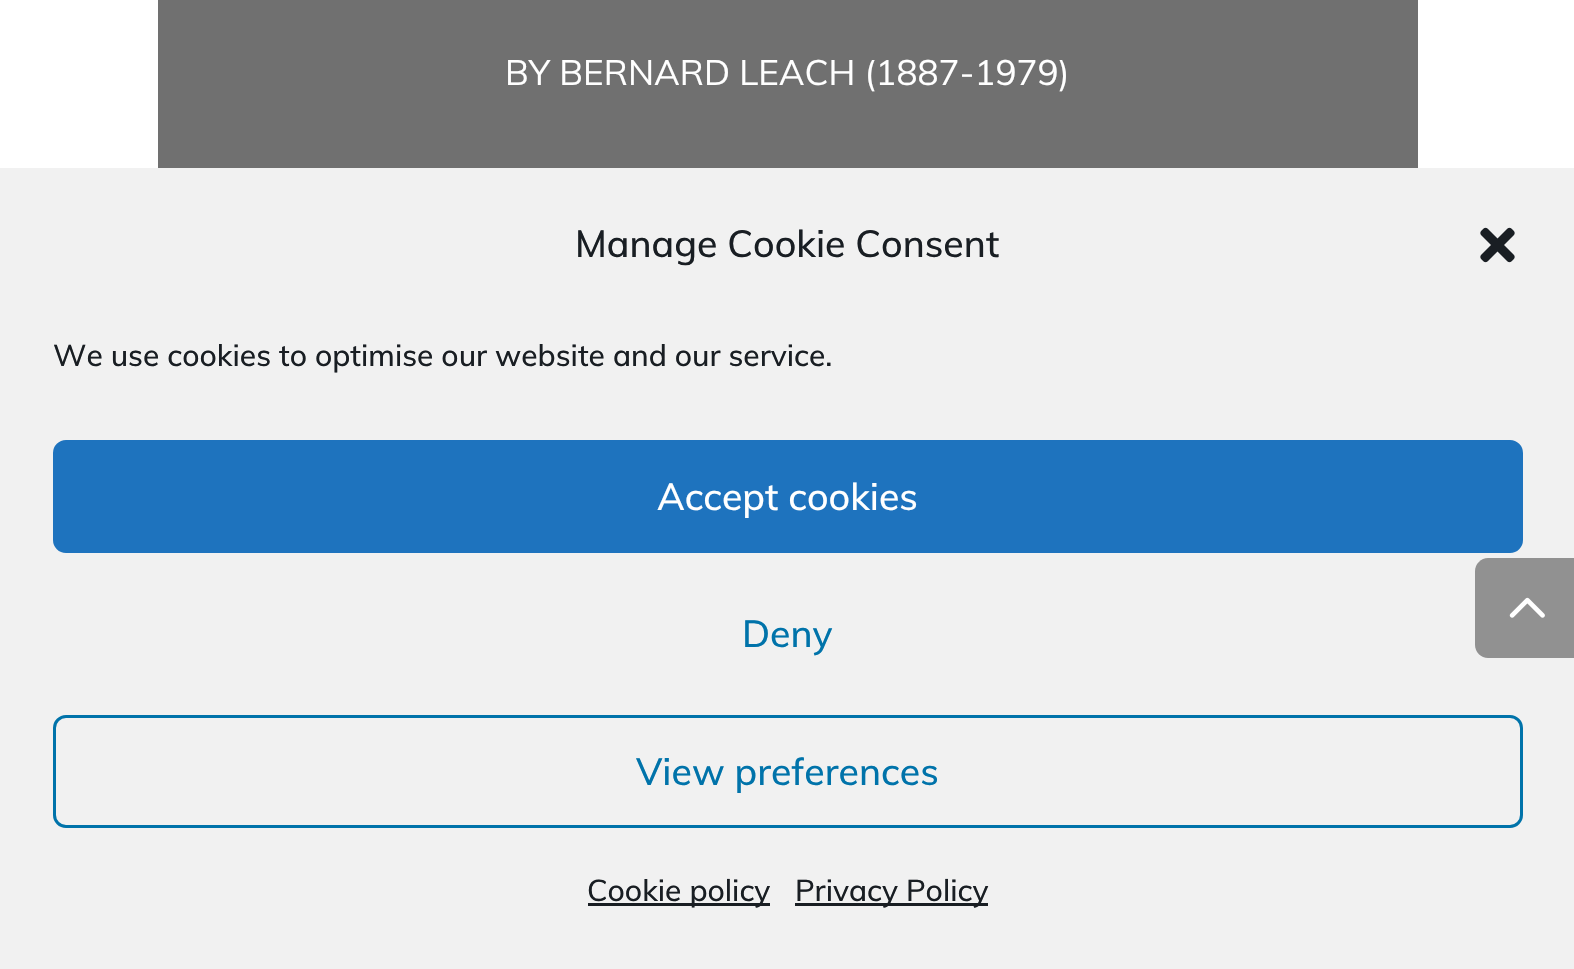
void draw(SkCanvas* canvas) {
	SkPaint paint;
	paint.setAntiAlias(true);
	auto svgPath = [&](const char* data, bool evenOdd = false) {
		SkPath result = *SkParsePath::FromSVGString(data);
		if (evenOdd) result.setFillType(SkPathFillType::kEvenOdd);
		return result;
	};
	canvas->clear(0xffffffff);
	paint.setColor(0xff707070);
	canvas->drawRect(SkRect::MakeXYWH(158, 0, 1260, 168), paint);
	SkFont f1(fontMgr->matchFamilyStyle("Muli", SkFontStyle::Normal()), 35);
	f1.setSubpixel(true);
	paint.setColor(0xffffffff);
	canvas->drawString("BY BERNARD LEACH (1887-1979)", 505, 85, f1, paint);
	paint.setColor(0xfff1f1f1);
	canvas->drawRect(SkRect::MakeXYWH(0, 168, 1574, 801), paint);
	SkFont f2(fontMgr->matchFamilyStyle("Muli", SkFontStyle(500, SkFontStyle::kNormal_Width, SkFontStyle::kUpright_Slant)), 37.5);
	f2.setSubpixel(true);
	paint.setColor(0xff191e23);
	canvas->drawString("Manage Cookie Consent", 575, 257, f2, paint);
	canvas->drawImageRect(SkImages::DeferredFromEncodedData(SkData::MakeFromFileName("img1.png")), SkRect::MakeXYWH(1480, 227, 35, 36), SkSamplingOptions());
	SkFont f3(fontMgr->matchFamilyStyle("Muli", SkFontStyle(500, SkFontStyle::kNormal_Width, SkFontStyle::kUpright_Slant)), 30);
	f3.setSubpixel(true);
	canvas->drawString("We use cookies to optimise our website and our service.", 53, 366, f3, paint);
	paint.setColor(0xff1e73be);
	canvas->drawRoundRect(SkRect::MakeXYWH(54.5, 441.5, 1467, 110), 11.5, 11.5, paint);
	paint.setStroke(true);
	paint.setStrokeWidth(3);
	canvas->drawRoundRect(SkRect::MakeXYWH(54.5, 441.5, 1467, 110), 11.5, 11.5, paint);
	paint.setStroke(false);
	paint.setColor(0xffffffff);
	canvas->drawString("Accept cookies", 657, 510, f2, paint);
	paint.setColor(0xff0073aa);
	canvas->drawString("Deny", 742, 647, f2, paint);
	paint.setStroke(true);
	canvas->drawRoundRect(SkRect::MakeXYWH(54.5, 716.5, 1467, 110), 11.5, 11.5, paint);
	paint.setStroke(false);
	canvas->drawString("View preferences", 636, 785, f2, paint);
	paint.setColor(0xff191e23);
	canvas->drawRect(SkRect::MakeXYWH(588, 903, 182, 3), paint);
	canvas->drawString("Cookie policy", 587, 901, f3, paint);
	canvas->drawRect(SkRect::MakeXYWH(795, 903, 193, 3), paint);
	canvas->drawString("Privacy Policy", 795, 901, f3, paint);
	paint.setColor(0xff919191);
	canvas->drawPath(svgPath("M1488 558H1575V658H1488C1481 658 1475 652 1475 645V571C1475 564 1481 558 1488 558Z"), paint);
	canvas->drawImageRect(SkImages::DeferredFromEncodedData(SkData::MakeFromFileName("img2.png")), SkRect::MakeXYWH(1509, 597, 36, 21), SkSamplingOptions());
}
